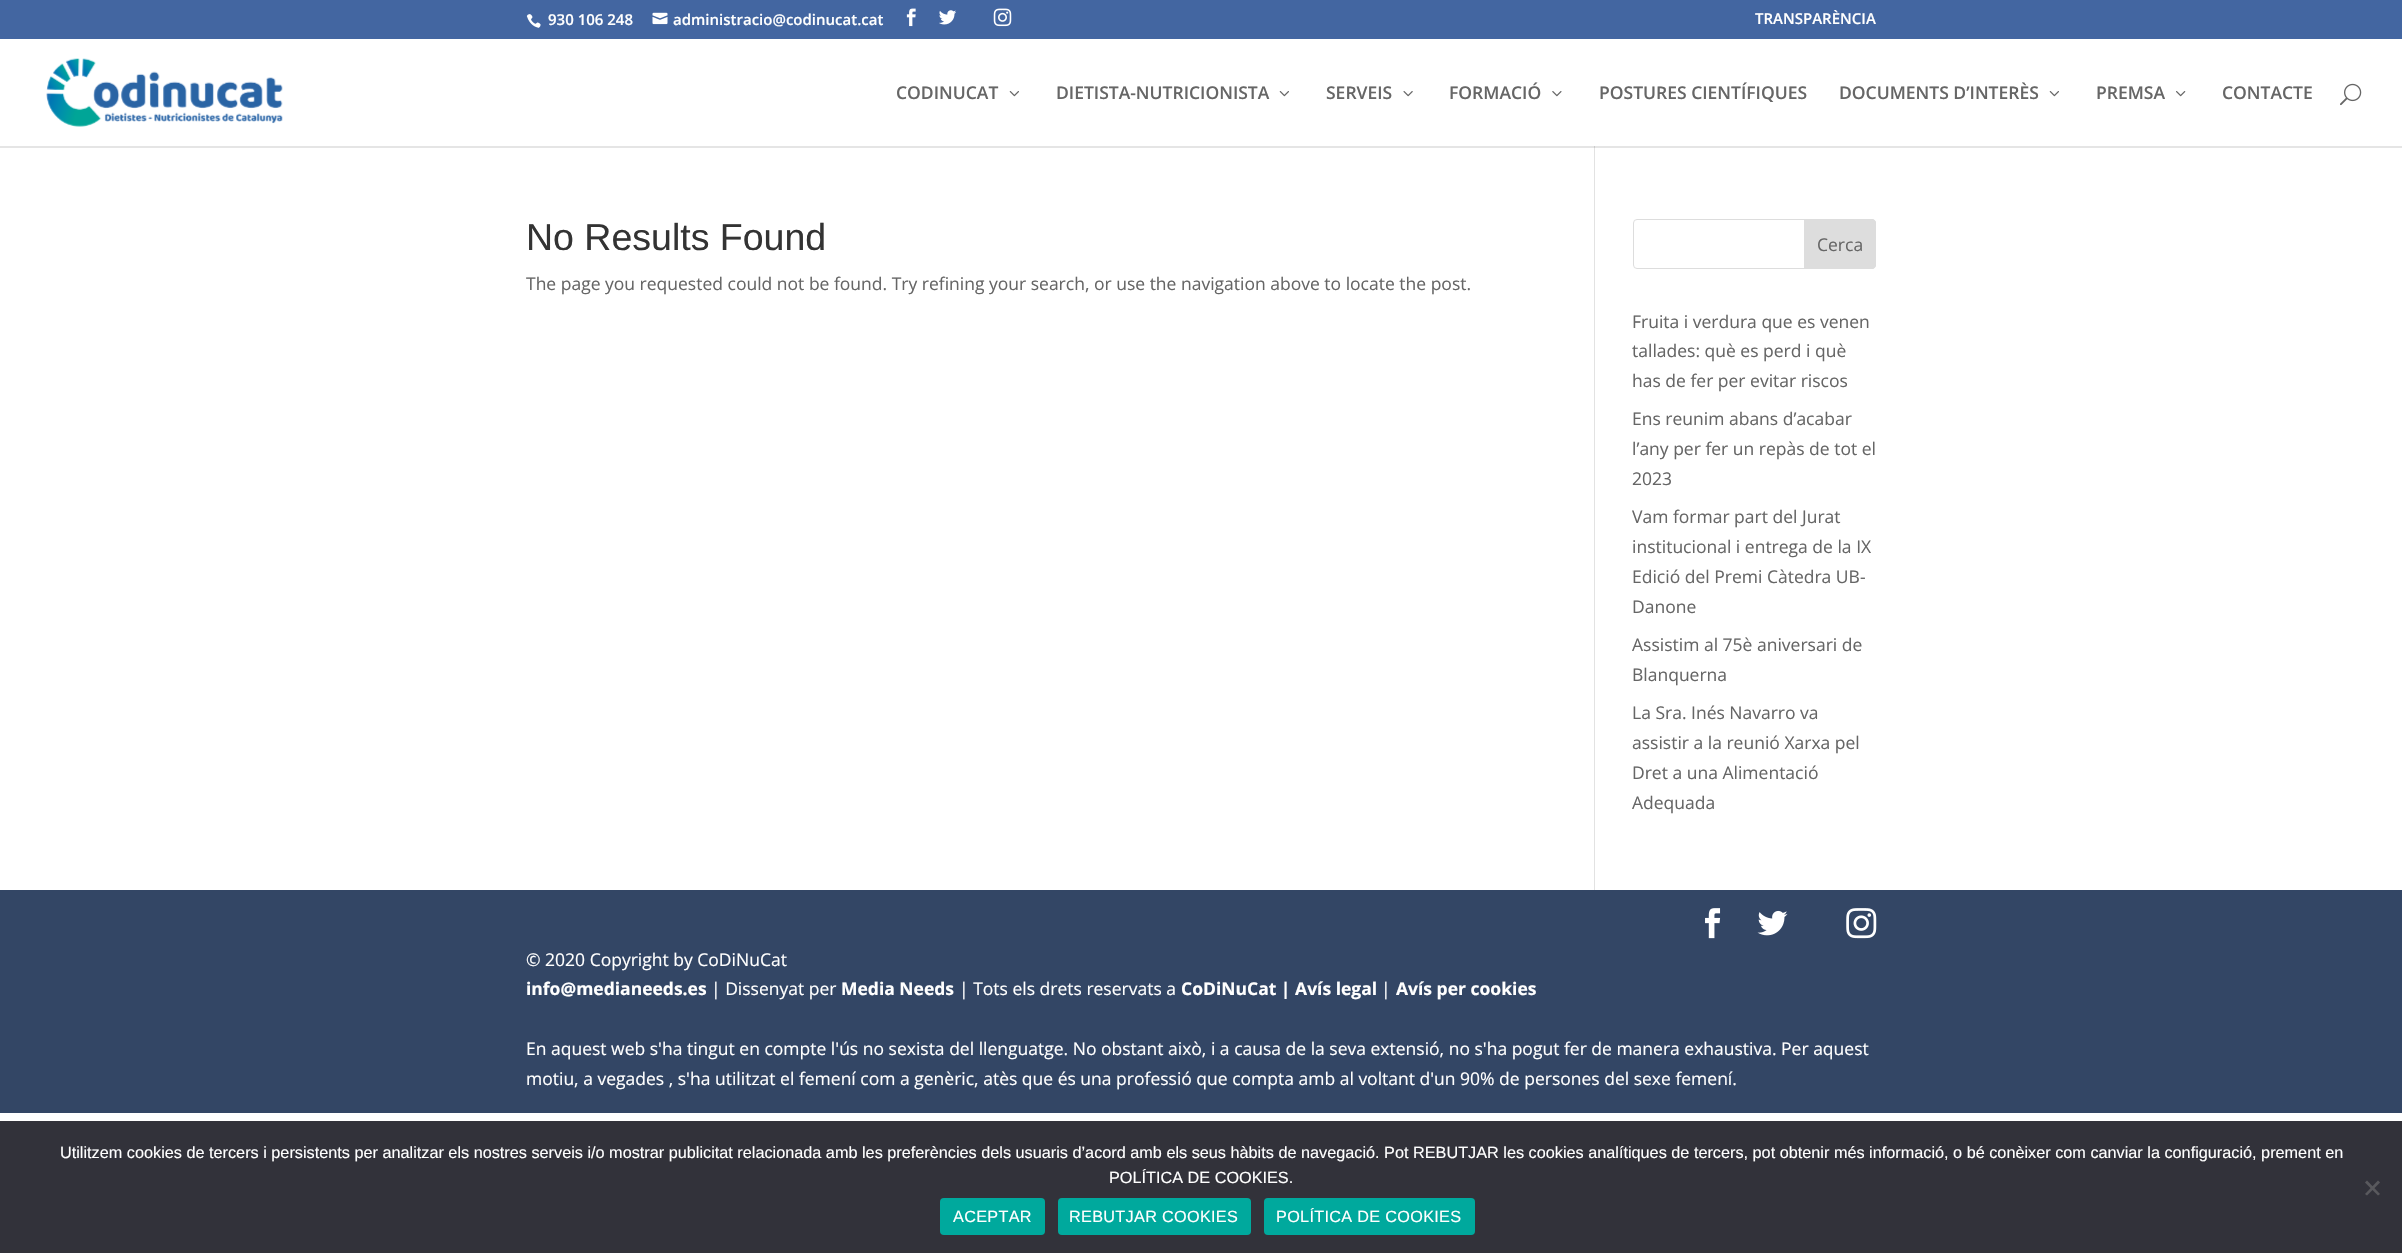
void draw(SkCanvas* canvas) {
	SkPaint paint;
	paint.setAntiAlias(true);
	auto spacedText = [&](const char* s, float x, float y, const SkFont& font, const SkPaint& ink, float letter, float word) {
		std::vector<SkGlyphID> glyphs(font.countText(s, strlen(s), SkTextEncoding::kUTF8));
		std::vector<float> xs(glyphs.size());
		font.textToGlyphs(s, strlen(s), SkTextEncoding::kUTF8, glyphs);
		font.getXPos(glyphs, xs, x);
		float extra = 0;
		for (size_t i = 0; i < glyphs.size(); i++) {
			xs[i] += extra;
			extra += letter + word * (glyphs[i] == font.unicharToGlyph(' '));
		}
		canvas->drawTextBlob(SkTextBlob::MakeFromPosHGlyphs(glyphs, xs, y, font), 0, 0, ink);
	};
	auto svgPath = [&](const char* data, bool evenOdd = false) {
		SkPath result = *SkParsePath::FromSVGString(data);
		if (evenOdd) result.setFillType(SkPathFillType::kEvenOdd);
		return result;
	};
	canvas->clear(0xffffffff);
	paint.setColor(0xff4366a1);
	canvas->drawRect(SkRect::MakeXYWH(0, 0, 2402, 39), paint);
	canvas->drawImageRect(SkImages::DeferredFromEncodedData(SkData::MakeFromFileName("img1.png")), SkRect::MakeXYWH(526, 14, 15, 14), SkSamplingOptions());
	SkFont f1(fontMgr->matchFamilyStyle("Open Sans", SkFontStyle(600, SkFontStyle::kNormal_Width, SkFontStyle::kUpright_Slant)), 15);
	f1.setSubpixel(true);
	paint.setColor(0xffffffff);
	canvas->drawString("930 106 248", 548, 25, f1, paint);
	canvas->drawImageRect(SkImages::DeferredFromEncodedData(SkData::MakeFromFileName("img2.png")), SkRect::MakeXYWH(652, 12, 16, 13), SkSamplingOptions());
	canvas->drawString("administracio@codinucat.cat", 673, 25, f1, paint);
	canvas->drawImageRect(SkImages::DeferredFromEncodedData(SkData::MakeFromFileName("img3.png")), SkRect::MakeXYWH(906, 8, 10, 19), SkSamplingOptions());
	canvas->drawImageRect(SkImages::DeferredFromEncodedData(SkData::MakeFromFileName("img4.png")), SkRect::MakeXYWH(939, 10, 17, 15), SkSamplingOptions());
	canvas->drawImageRect(SkImages::DeferredFromEncodedData(SkData::MakeFromFileName("img5.png")), SkRect::MakeXYWH(993, 8, 19, 19), SkSamplingOptions());
	canvas->drawString("TRANSPARÈNCIA", 1755, 24, f1, paint);
	paint.setColor(0xffe2e2e2);
	canvas->drawRect(SkRect::MakeXYWH(1594, 146, 1, 744), paint);
	paint.setColor(0x1a000000);
	canvas->drawPath(svgPath("M0 146V148H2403V40H2402V146Z"), paint);
	canvas->drawImageRect(SkImages::DeferredFromEncodedData(SkData::MakeFromFileName("img6.png")), SkRect::MakeXYWH(46, 58, 237, 69), SkSamplingOptions());
	SkFont f2(fontMgr->matchFamilyStyle("Open Sans", SkFontStyle(600, SkFontStyle::kNormal_Width, SkFontStyle::kUpright_Slant)), 17.5);
	f2.setSubpixel(true);
	paint.setColor(0xff666666);
	canvas->drawString("CODINUCAT", 896, 99, f2, paint);
	canvas->drawImageRect(SkImages::DeferredFromEncodedData(SkData::MakeFromFileName("img7.png")), SkRect::MakeXYWH(1009, 91, 10, 6), SkSamplingOptions());
	canvas->drawString("DIETISTA-NUTRICIONISTA", 1056, 99, f2, paint);
	canvas->drawImageRect(SkImages::DeferredFromEncodedData(SkData::MakeFromFileName("img7.png")), SkRect::MakeXYWH(1279, 91, 10, 6), SkSamplingOptions());
	canvas->drawString("SERVEIS", 1326, 99, f2, paint);
	canvas->drawImageRect(SkImages::DeferredFromEncodedData(SkData::MakeFromFileName("img8.png")), SkRect::MakeXYWH(1403, 91, 10, 6), SkSamplingOptions());
	canvas->drawString("FORMACIÓ", 1449, 99, f2, paint);
	canvas->drawImageRect(SkImages::DeferredFromEncodedData(SkData::MakeFromFileName("img9.png")), SkRect::MakeXYWH(1552, 91, 10, 6), SkSamplingOptions());
	canvas->drawString("POSTURES CIENTÍFIQUES", 1599, 99, f2, paint);
	canvas->drawString("DOCUMENTS D’INTERÈS", 1839, 99, f2, paint);
	canvas->drawImageRect(SkImages::DeferredFromEncodedData(SkData::MakeFromFileName("img7.png")), SkRect::MakeXYWH(2049, 91, 10, 6), SkSamplingOptions());
	canvas->drawString("PREMSA", 2096, 99, f2, paint);
	canvas->drawImageRect(SkImages::DeferredFromEncodedData(SkData::MakeFromFileName("img10.png")), SkRect::MakeXYWH(2176, 91, 10, 6), SkSamplingOptions());
	canvas->drawString("CONTACTE", 2222, 99, f2, paint);
	canvas->drawImageRect(SkImages::DeferredFromEncodedData(SkData::MakeFromFileName("img11.png")), SkRect::MakeXYWH(2340, 83, 22, 23), SkSamplingOptions());
	SkFont f3(fontMgr->matchFamilyStyle("Liberation Sans", SkFontStyle::Normal()), 37.5);
	f3.setSubpixel(true);
	paint.setColor(0xff333333);
	canvas->drawString("No Results Found", 526, 250, f3, paint);
	SkFont f4(fontMgr->matchFamilyStyle("Open Sans", SkFontStyle::Normal()), 17.5);
	f4.setSubpixel(true);
	paint.setColor(0xff666666);
	canvas->drawString("The page you requested could not be found. Try refining your search, or use the navigation above to locate the post.", 526, 290, f4, paint);
	paint.setStroke(true);
	paint.setStrokeWidth(1);
	paint.setColor(0xffdddddd);
	canvas->drawRoundRect(SkRect::MakeXYWH(1633.5, 219.5, 242, 49), 3.5, 3.5, paint);
	paint.setStroke(false);
	canvas->drawPath(svgPath("M1804.5 219.5H1872C1874 219.5 1875.5 221 1875.5 223V265C1875.5 267 1874 268.5 1872 268.5H1804.5Z"), paint);
	paint.setStroke(true);
	canvas->drawPath(svgPath("M1804.5 219.5H1872C1874 219.5 1875.5 221 1875.5 223V265C1875.5 267 1874 268.5 1872 268.5H1804.5Z"), paint);
	paint.setStroke(false);
	paint.setColor(0xff666666);
	canvas->drawString("Cerca", 1817, 251, f4, paint);
	canvas->drawString("Fruita i verdura que es venen", 1632, 328, f4, paint);
	canvas->drawString("tallades: què es perd i què", 1632, 357, f4, paint);
	canvas->drawString("has de fer per evitar riscos", 1632, 387, f4, paint);
	canvas->drawString("Ens reunim abans d’acabar", 1632, 425, f4, paint);
	canvas->drawString("l’any per fer un repàs de tot el", 1632, 455, f4, paint);
	canvas->drawString("2023", 1632, 485, f4, paint);
	canvas->drawString("Vam formar part del Jurat", 1632, 523, f4, paint);
	canvas->drawString("institucional i entrega de la IX", 1632, 553, f4, paint);
	canvas->drawString("Edició del Premi Càtedra UB-", 1632, 583, f4, paint);
	canvas->drawString("Danone", 1632, 613, f4, paint);
	canvas->drawString("Assistim al 75è aniversari de", 1632, 651, f4, paint);
	canvas->drawString("Blanquerna", 1632, 681, f4, paint);
	canvas->drawString("La Sra. Inés Navarro va", 1632, 719, f4, paint);
	canvas->drawString("assistir a la reunió Xarxa pel", 1632, 749, f4, paint);
	canvas->drawString("Dret a una Alimentació", 1632, 779, f4, paint);
	canvas->drawString("Adequada", 1632, 809, f4, paint);
	paint.setColor(0xff334665);
	canvas->drawRect(SkRect::MakeXYWH(0, 890, 2402, 223), paint);
	canvas->drawImageRect(SkImages::DeferredFromEncodedData(SkData::MakeFromFileName("img12.png")), SkRect::MakeXYWH(1705, 908, 16, 31), SkSamplingOptions());
	canvas->drawImageRect(SkImages::DeferredFromEncodedData(SkData::MakeFromFileName("img13.png")), SkRect::MakeXYWH(1757, 910, 31, 26), SkSamplingOptions());
	canvas->drawImageRect(SkImages::DeferredFromEncodedData(SkData::MakeFromFileName("img14.png")), SkRect::MakeXYWH(1846, 908, 31, 31), SkSamplingOptions());
	paint.setColor(0xffffffff);
	canvas->drawString("© 2020 Copyright by CoDiNuCat", 526, 966, f4, paint);
	SkFont f5(fontMgr->matchFamilyStyle("Open Sans", SkFontStyle::Bold()), 17.5);
	f5.setSubpixel(true);
	canvas->drawString("info@medianeeds.es", 526, 995, f5, paint);
	canvas->drawString("| Dissenyat per", 711, 995, f4, paint);
	canvas->drawString("Media Needs", 841, 995, f5, paint);
	canvas->drawString("| Tots els drets reservats a", 959, 995, f4, paint);
	canvas->drawString("CoDiNuCat | Avís legal", 1181, 995, f5, paint);
	canvas->drawString("|", 1381, 995, f4, paint);
	canvas->drawString("Avís per cookies", 1396, 995, f5, paint);
	canvas->drawString("En aquest web s'ha tingut en compte l'ús no sexista del llenguatge. No obstant això, i a causa de la seva extensió, no s'ha pogut fer de manera exhaustiva. Per aquest", 526, 1055, f4, paint);
	canvas->drawString("motiu, a vegades , s'ha utilitzat el femení com a genèric, atès que és una professió que compta amb al voltant d'un 90% de persones del sexe femení.", 526, 1085, f4, paint);
	paint.setColor(0xff32323a);
	canvas->drawRect(SkRect::MakeXYWH(0, 1121, 2402, 132), paint);
	SkFont f6(fontMgr->matchFamilyStyle("Liberation Sans", SkFontStyle::Normal()), 16.25);
	f6.setSubpixel(true);
	paint.setColor(0xffffffff);
	canvas->drawString("Utilitzem cookies de tercers i persistents per analitzar els nostres serveis i/o mostrar publicitat relacionada amb les preferències dels usuaris d’acord amb els seus hàbits de navegació. Pot REBUTJAR les cookies analítiques de tercers, pot obtenir més informació, o bé conèixer com canviar la configuració, prement en", 60, 1158, f6, paint);
	canvas->drawString("POLÍTICA DE COOKIES.", 1109, 1183, f6, paint);
	paint.setColor(0xff59595d);
	canvas->drawPath(svgPath("M2378 1180.5L2380 1182.5L2367 1195.5L2365 1194Z"), paint);
	canvas->drawPath(svgPath("M2365 1182.5L2367 1180.5L2380 1194L2378 1195.5Z"), paint);
	paint.setColor(0xff00a99d);
	canvas->drawRoundRect(SkRect::MakeXYWH(940, 1198, 105, 37), 4, 4, paint);
	paint.setColor(0xffffffff);
	spacedText("ACEPTAR", 953, 1222, f6, paint, 0.3, 0);
	paint.setColor(0xff00a99d);
	canvas->drawRoundRect(SkRect::MakeXYWH(1058, 1198, 193, 37), 4, 4, paint);
	paint.setColor(0xffffffff);
	spacedText("REBUTJAR COOKIES", 1069, 1222, f6, paint, 0.3, 0);
	paint.setColor(0xff00a99d);
	canvas->drawRoundRect(SkRect::MakeXYWH(1264, 1198, 211, 37), 4, 4, paint);
	paint.setColor(0xffffffff);
	spacedText("POLÍTICA DE COOKIES", 1276, 1222, f6, paint, 0.3, 0);
}
